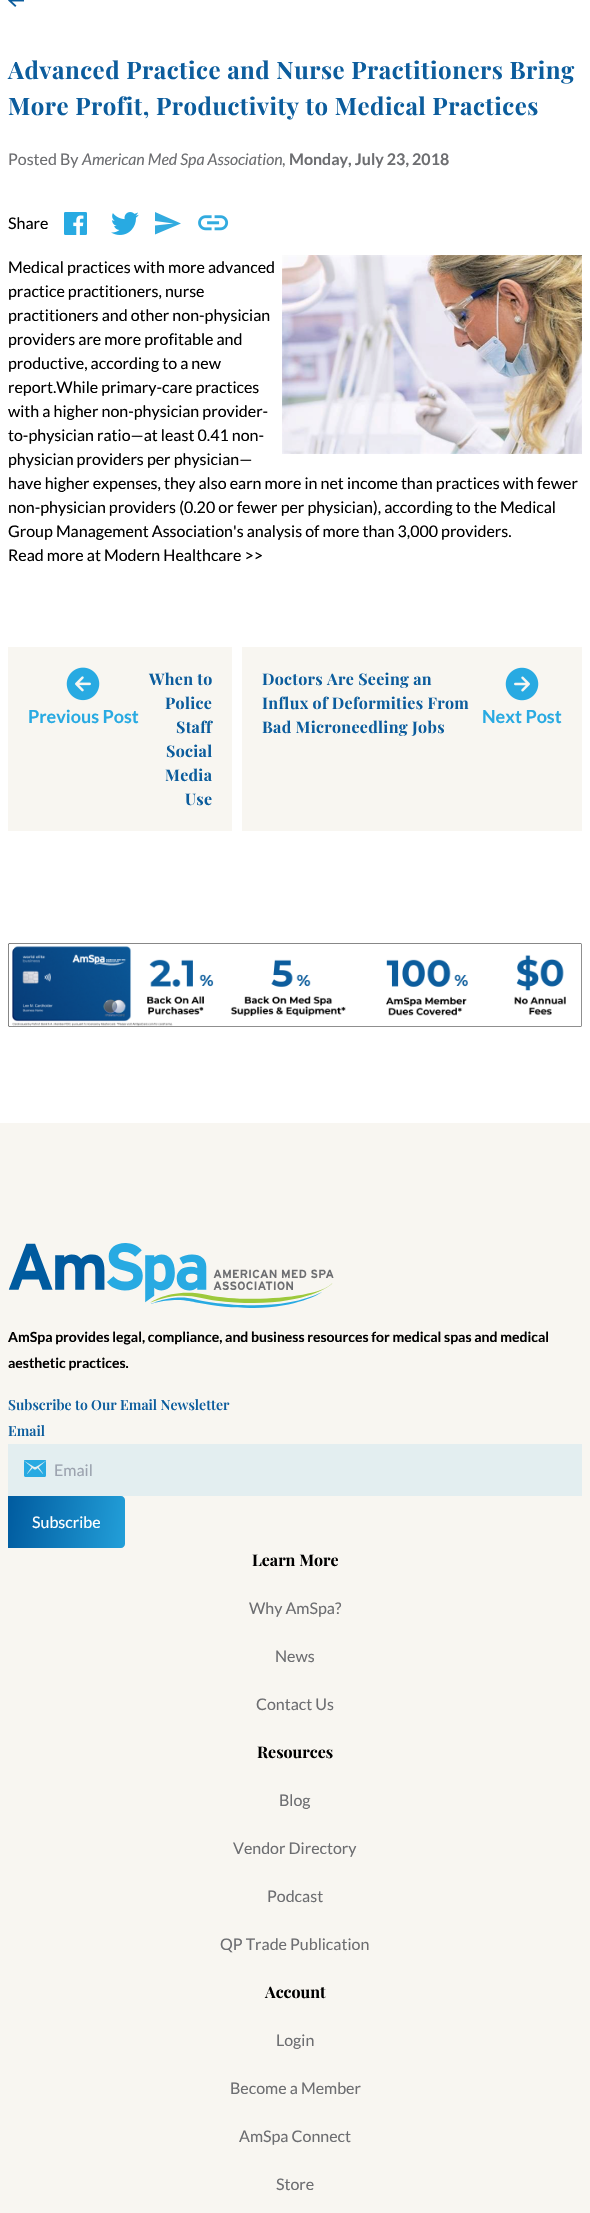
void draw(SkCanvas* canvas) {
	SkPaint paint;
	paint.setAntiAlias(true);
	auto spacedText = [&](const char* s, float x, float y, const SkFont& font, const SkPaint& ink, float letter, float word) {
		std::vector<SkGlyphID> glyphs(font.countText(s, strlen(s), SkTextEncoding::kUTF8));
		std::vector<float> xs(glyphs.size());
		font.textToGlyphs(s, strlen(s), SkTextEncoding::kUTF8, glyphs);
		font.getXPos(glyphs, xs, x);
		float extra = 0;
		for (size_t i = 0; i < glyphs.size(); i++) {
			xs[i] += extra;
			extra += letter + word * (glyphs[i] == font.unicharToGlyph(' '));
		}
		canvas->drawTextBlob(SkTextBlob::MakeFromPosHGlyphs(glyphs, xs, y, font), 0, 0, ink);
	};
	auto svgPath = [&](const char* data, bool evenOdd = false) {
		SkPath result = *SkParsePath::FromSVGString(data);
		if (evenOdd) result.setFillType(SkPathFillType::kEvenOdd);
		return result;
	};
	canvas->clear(0xffffffff);
	canvas->drawImageRect(SkImages::DeferredFromEncodedData(SkData::MakeFromFileName("img1.png")), SkRect::MakeXYWH(8, 0, 16, 7), SkSamplingOptions());
	SkFont f1(fontMgr->matchFamilyStyle("Playfair Display", SkFontStyle::Bold()), 24);
	f1.setSubpixel(true);
	paint.setColor(0xff0c5d9d);
	spacedText("Advanced Practice and Nurse Practitioners Bring", 8, 79, f1, paint, 0.5, 0);
	spacedText("More Profit, Productivity to Medical Practices", 8, 115, f1, paint, 0.5, 0);
	SkFont f2(fontMgr->matchFamilyStyle("Lato", SkFontStyle::Normal()), 16);
	f2.setSubpixel(true);
	paint.setColor(0xff6d6e71);
	canvas->drawString("Posted By", 8, 165, f2, paint);
	SkFont f3(fontMgr->matchFamilyStyle("Lato", SkFontStyle::Italic()), 16);
	f3.setSubpixel(true);
	canvas->drawString("American Med Spa Association", 82, 165, f3, paint);
	canvas->drawString(",", 282, 165, f2, paint);
	SkFont f4(fontMgr->matchFamilyStyle("Lato", SkFontStyle::Bold()), 16);
	f4.setSubpixel(true);
	canvas->drawString("Monday, July 23, 2018", 289, 165, f4, paint);
	paint.setColor(0xff000000);
	canvas->drawString("Share", 8, 229, f2, paint);
	canvas->drawImageRect(SkImages::DeferredFromEncodedData(SkData::MakeFromFileName("img2.png")), SkRect::MakeXYWH(64, 212, 23, 23), SkSamplingOptions());
	canvas->drawImageRect(SkImages::DeferredFromEncodedData(SkData::MakeFromFileName("img3.png")), SkRect::MakeXYWH(111, 212, 28, 23), SkSamplingOptions());
	paint.setColor(0xff32abdf);
	canvas->drawPath(svgPath("M155 234.5L181 223.5L155 212V221L173.5 223.5L155 225.5Z"), paint);
	canvas->drawImageRect(SkImages::DeferredFromEncodedData(SkData::MakeFromFileName("img4.png")), SkRect::MakeXYWH(198, 215, 31, 16), SkSamplingOptions());
	paint.setColor(0xff000000);
	canvas->drawString("Medical practices with more advanced", 8, 273, f2, paint);
	canvas->drawImageRect(SkImages::DeferredFromEncodedData(SkData::MakeFromFileName("img5.png")), SkRect::MakeXYWH(282, 255, 300, 199), SkSamplingOptions());
	canvas->drawString("practice practitioners, nurse", 8, 297, f2, paint);
	canvas->drawString("practitioners and other non-physician", 8, 321, f2, paint);
	canvas->drawString("providers are more profitable and", 8, 345, f2, paint);
	canvas->drawString("productive, according to a new", 8, 369, f2, paint);
	canvas->drawString("report.While primary-care practices", 8, 393, f2, paint);
	canvas->drawString("with a higher non-physician provider-", 8, 417, f2, paint);
	canvas->drawString("to-physician ratio—at least 0.41 non-", 8, 441, f2, paint);
	canvas->drawString("physician providers per physician—", 8, 465, f2, paint);
	canvas->drawString("have higher expenses, they also earn more in net income than practices with fewer", 8, 489, f2, paint);
	canvas->drawString("non-physician providers (0.20 or fewer per physician), according to the Medical", 8, 513, f2, paint);
	canvas->drawString("Group Management Association's analysis of more than 3,000 providers.", 8, 537, f2, paint);
	canvas->drawString("Read more at Modern Healthcare >>", 8, 561, f2, paint);
	paint.setColor(0xfff8f6f1);
	canvas->drawRect(SkRect::MakeXYWH(8, 647, 224, 184), paint);
	canvas->drawImageRect(SkImages::DeferredFromEncodedData(SkData::MakeFromFileName("img6.png")), SkRect::MakeXYWH(66, 667, 34, 34), SkSamplingOptions());
	SkFont f5(fontMgr->matchFamilyStyle("Lato", SkFontStyle::Bold()), 18);
	f5.setSubpixel(true);
	paint.setColor(0xff28aae2);
	canvas->drawString("Previous Post", 28, 723, f5, paint);
	SkFont f6(fontMgr->matchFamilyStyle("Playfair Display", SkFontStyle::Bold()), 16);
	f6.setSubpixel(true);
	paint.setColor(0xff0c5d9d);
	spacedText("When to", 149, 685, f6, paint, 0.3, 0);
	spacedText("Police", 165, 709, f6, paint, 0.3, 0);
	spacedText("Staff", 176, 733, f6, paint, 0.3, 0);
	spacedText("Social", 166, 757, f6, paint, 0.3, 0);
	spacedText("Media", 165, 781, f6, paint, 0.3, 0);
	spacedText("Use", 185, 805, f6, paint, 0.3, 0);
	paint.setColor(0xfff8f6f1);
	canvas->drawRect(SkRect::MakeXYWH(242, 647, 340, 184), paint);
	paint.setColor(0xff0c5d9d);
	spacedText("Doctors Are Seeing an", 262, 685, f6, paint, 0.3, 0);
	spacedText("Influx of Deformities From", 262, 709, f6, paint, 0.3, 0);
	spacedText("Bad Microneedling Jobs", 262, 733, f6, paint, 0.3, 0);
	canvas->drawImageRect(SkImages::DeferredFromEncodedData(SkData::MakeFromFileName("img7.png")), SkRect::MakeXYWH(505, 667, 34, 34), SkSamplingOptions());
	paint.setColor(0xff28aae2);
	canvas->drawString("Next Post", 482, 723, f5, paint);
	canvas->drawImageRect(SkImages::DeferredFromEncodedData(SkData::MakeFromFileName("img8.png")), SkRect::MakeXYWH(8, 943, 574, 84), SkSamplingOptions());
	paint.setColor(0xfff8f6f1);
	canvas->drawRect(SkRect::MakeXYWH(0, 1123, 590, 1090), paint);
	canvas->drawImageRect(SkImages::DeferredFromEncodedData(SkData::MakeFromFileName("img9.png")), SkRect::MakeXYWH(8, 1243, 326, 65), SkSamplingOptions());
	SkFont f7(fontMgr->matchFamilyStyle("Lato", SkFontStyle::Bold()), 14);
	f7.setSubpixel(true);
	paint.setColor(0xff000000);
	canvas->drawString("AmSpa provides legal, compliance, and business resources for medical spas and medical", 8, 1342, f7, paint);
	canvas->drawString("aesthetic practices.", 8, 1368, f7, paint);
	SkFont f8(fontMgr->matchFamilyStyle("Playfair Display", SkFontStyle(600, SkFontStyle::kNormal_Width, SkFontStyle::kUpright_Slant)), 14);
	f8.setSubpixel(true);
	paint.setColor(0xff0c5d9d);
	canvas->drawString("Subscribe to Our Email Newsletter", 8, 1410, f8, paint);
	canvas->drawString("Email", 8, 1436, f8, paint);
	paint.setColor(0xffe3eef0);
	canvas->drawRect(SkRect::MakeXYWH(8, 1444, 574, 52), paint);
	canvas->drawImageRect(SkImages::DeferredFromEncodedData(SkData::MakeFromFileName("img10.png")), SkRect::MakeXYWH(24, 1460, 22, 17), SkSamplingOptions());
	paint.setColor(0xff9ca3af);
	canvas->drawString("Email", 54, 1476, f2, paint);
	{
		const SkColor colors[] = {0xff005b9f, 0xff28aae2};
		const float stops[] = {0, 1};
		const SkPoint ends[] = {{5.5, 1513}, {147, 1533}};
		paint.setShader(SkGradientShader::MakeLinear(ends, colors, stops, 2, SkTileMode::kClamp));
		paint.setAlpha(255);
	}
	canvas->drawPath(svgPath("M8 1496H121C123 1496 125 1498 125 1500V1544C125 1546 123 1548 121 1548H8Z"), paint);
	paint.setShader(nullptr);
	paint.setColor(0xffffffff);
	canvas->drawString("Subscribe", 32, 1528, f2, paint);
	paint.setColor(0xff000000);
	canvas->drawString("Learn More", 252, 1566, f6, paint);
	paint.setColor(0xff6d6e71);
	canvas->drawString("Why AmSpa?", 249, 1614, f2, paint);
	canvas->drawString("News", 275, 1662, f2, paint);
	canvas->drawString("Contact Us", 256, 1710, f2, paint);
	paint.setColor(0xff000000);
	canvas->drawString("Resources", 257, 1758, f6, paint);
	paint.setColor(0xff6d6e71);
	canvas->drawString("Blog", 279, 1806, f2, paint);
	canvas->drawString("Vendor Directory", 233, 1854, f2, paint);
	canvas->drawString("Podcast", 267, 1902, f2, paint);
	canvas->drawString("QP Trade Publication", 220, 1950, f2, paint);
	paint.setColor(0xff000000);
	canvas->drawString("Account", 265, 1998, f6, paint);
	paint.setColor(0xff6d6e71);
	canvas->drawString("Login", 276, 2046, f2, paint);
	canvas->drawString("Become a Member", 230, 2094, f2, paint);
	canvas->drawString("AmSpa Connect", 239, 2142, f2, paint);
	canvas->drawString("Store", 276, 2190, f2, paint);
}
